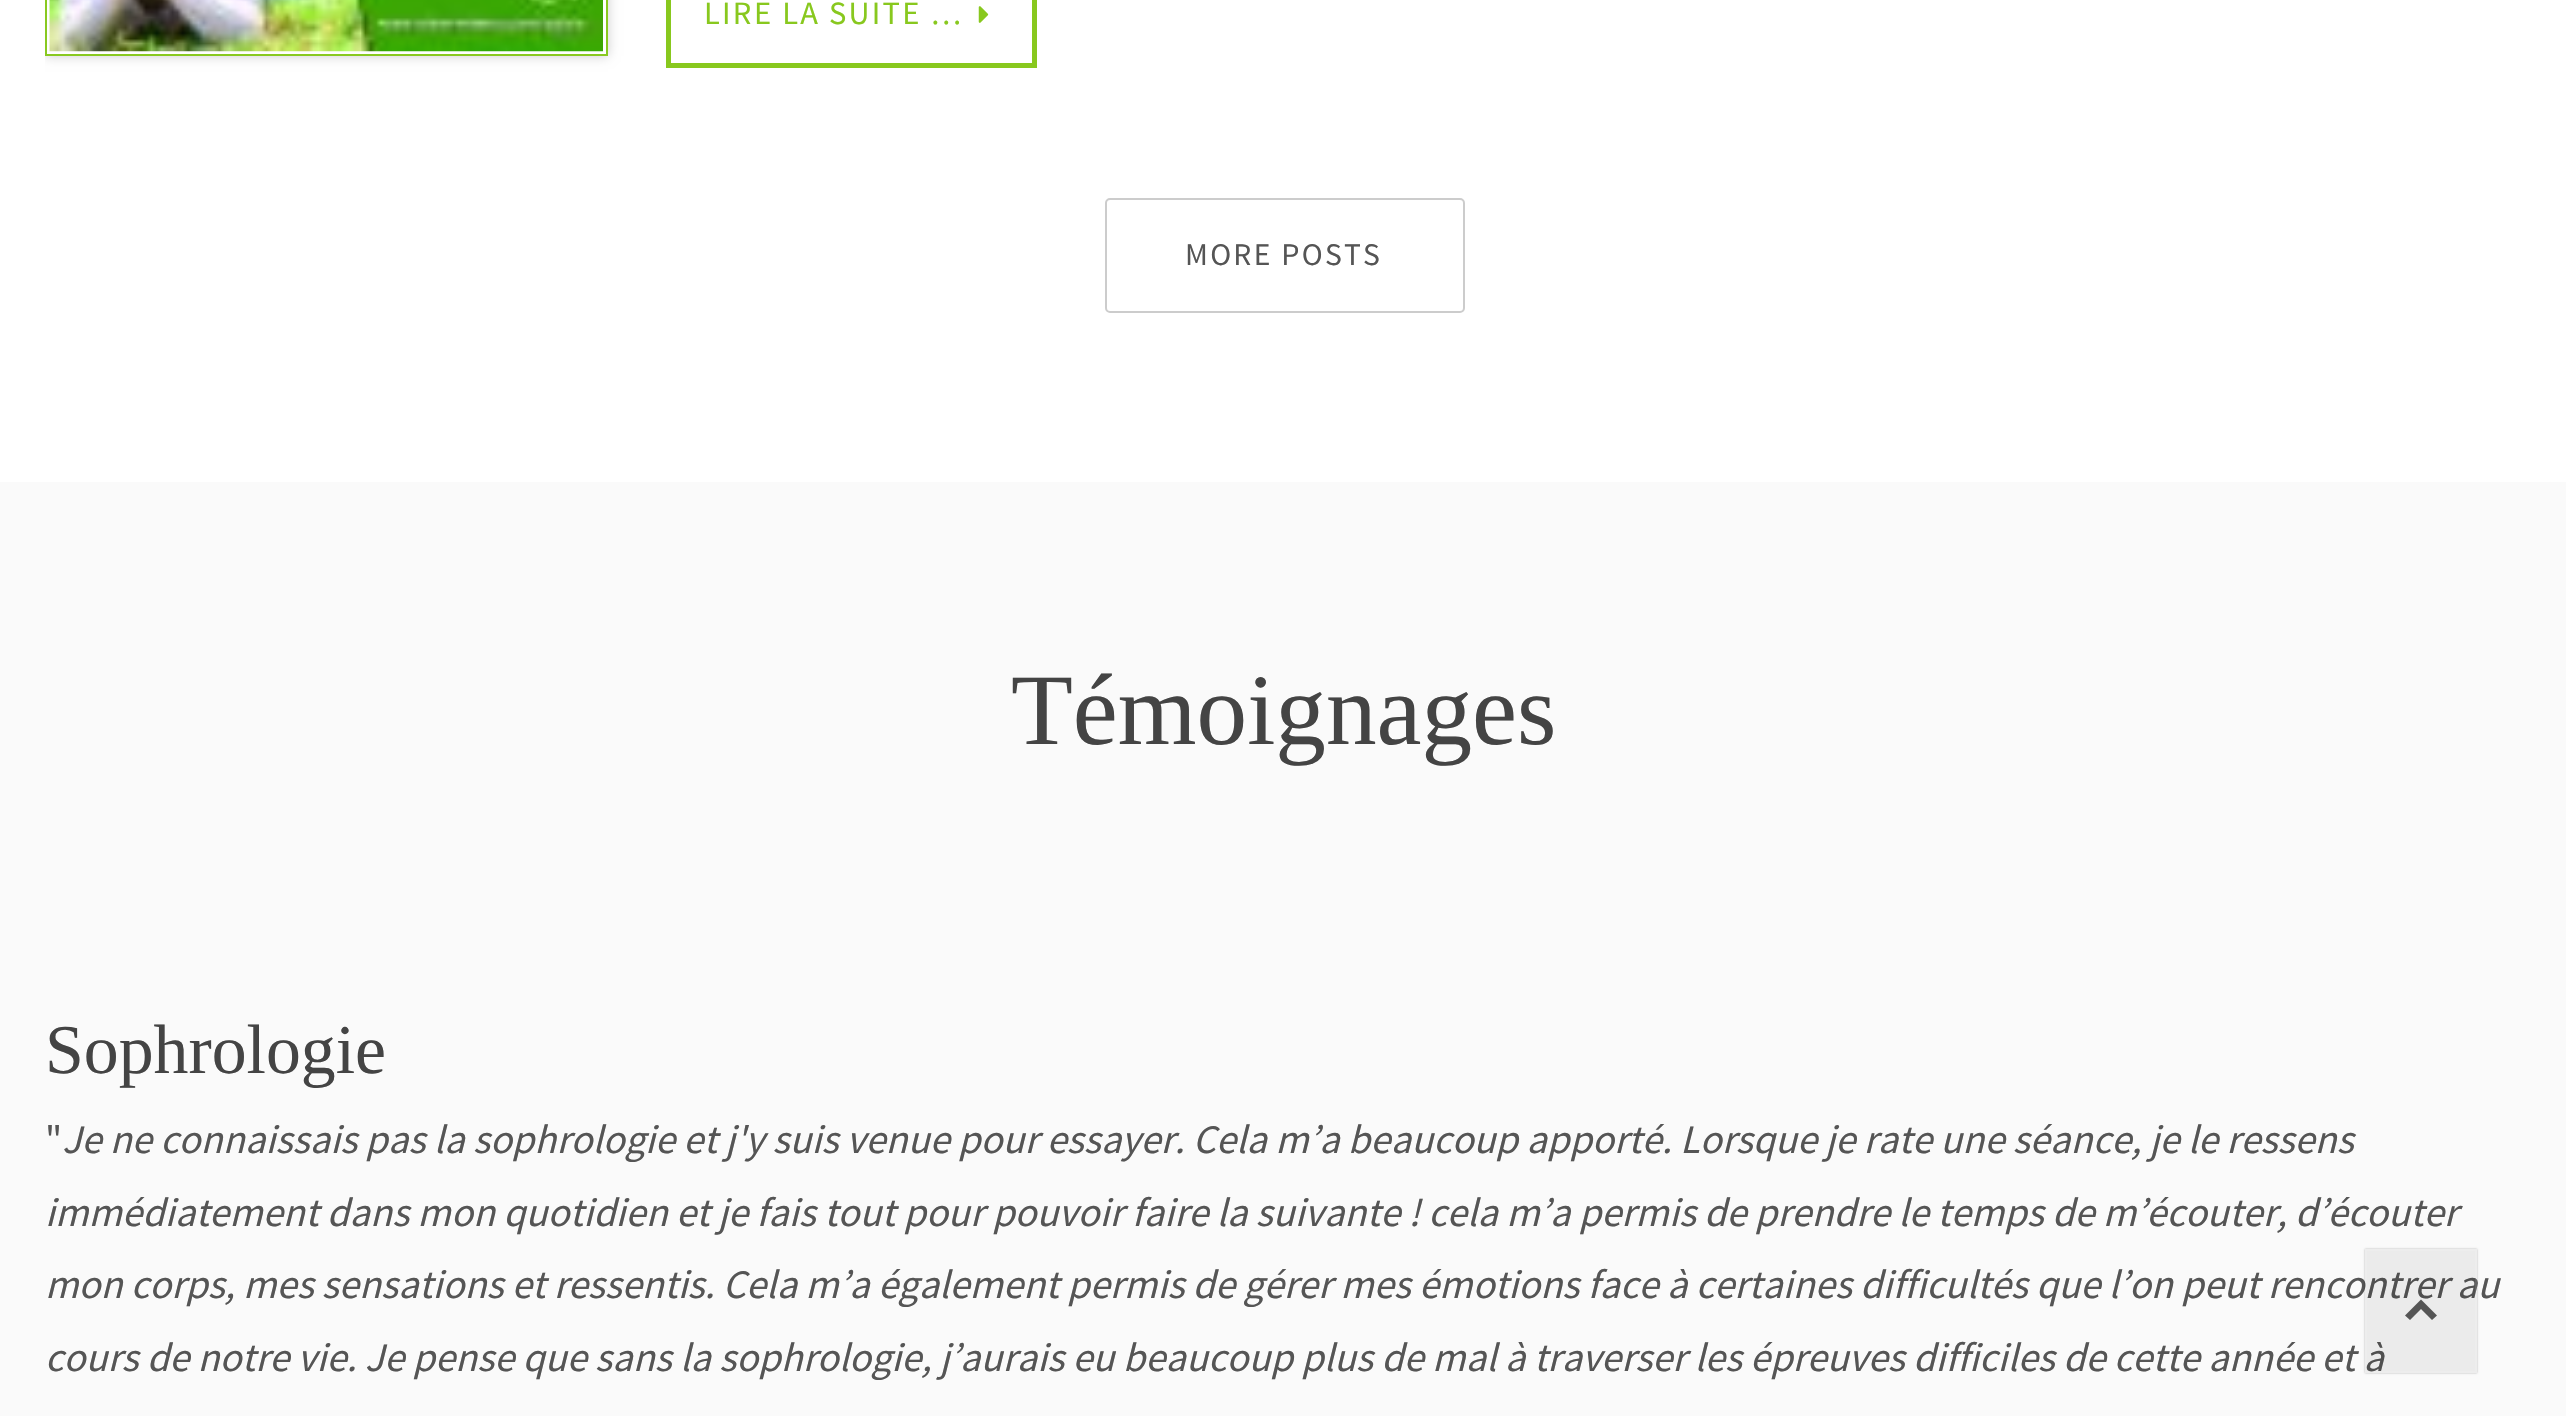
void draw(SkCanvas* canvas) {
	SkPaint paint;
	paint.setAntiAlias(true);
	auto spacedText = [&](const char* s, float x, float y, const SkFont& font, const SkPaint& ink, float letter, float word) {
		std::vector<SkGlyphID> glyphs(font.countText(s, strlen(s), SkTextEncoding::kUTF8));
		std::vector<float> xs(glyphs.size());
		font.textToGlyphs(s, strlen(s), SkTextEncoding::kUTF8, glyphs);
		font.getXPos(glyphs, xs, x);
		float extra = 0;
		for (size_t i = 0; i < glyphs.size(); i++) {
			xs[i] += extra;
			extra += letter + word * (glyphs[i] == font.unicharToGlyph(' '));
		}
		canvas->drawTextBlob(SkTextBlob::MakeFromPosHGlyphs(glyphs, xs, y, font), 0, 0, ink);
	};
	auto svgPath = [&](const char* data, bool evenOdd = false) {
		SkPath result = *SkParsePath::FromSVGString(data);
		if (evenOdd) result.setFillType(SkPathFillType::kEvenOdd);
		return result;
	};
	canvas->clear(0xffffffff);
	canvas->save();
	canvas->clipRect(SkRect::MakeXYWH(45, 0, 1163, 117));
	canvas->clipPath(svgPath("M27 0H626V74H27ZM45-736H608V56H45Z", true), true);
	paint.setColor(0xffcdcdcd);
	paint.setMaskFilter(SkMaskFilter::MakeBlur(kNormal_SkBlurStyle, 5.5));
	canvas->drawRect(SkRect::MakeXYWH(45, -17, 563, 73), paint);
	paint.setMaskFilter(nullptr);
	canvas->restore();
	paint.setStroke(true);
	paint.setStrokeWidth(2);
	paint.setColor(0xff89c920);
	canvas->drawRect(SkRect::MakeXYWH(46, -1, 561, 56), paint);
	canvas->drawImageRect(SkImages::DeferredFromEncodedData(SkData::MakeFromFileName("img1.png")), SkRect::MakeXYWH(49, 0, 554, 52), SkSamplingOptions());
	paint.setStrokeWidth(5);
	paint.setColor(0xff88c81e);
	canvas->drawRect(SkRect::MakeXYWH(668.5, -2.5, 366, 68), paint);
	SkFont f1(fontMgr->matchFamilyStyle("Source Sans Pro", SkFontStyle::Normal()), 32.5);
	f1.setSubpixel(true);
	paint.setStroke(false);
	spacedText("LIRE LA SUITE", 704, 24, f1, paint, 2.25, 0);
	SkFont f2(fontMgr->matchFamilyStyle("Liberation Serif", SkFontStyle::Normal()), 32.5);
	f2.setSubpixel(true);
	spacedText("…", 930, 24, f2, paint, 2.25, 0);
	canvas->drawImageRect(SkImages::DeferredFromEncodedData(SkData::MakeFromFileName("img2.png")), SkRect::MakeXYWH(978, 6, 11, 17), SkSamplingOptions());
	paint.setStroke(true);
	paint.setStrokeWidth(2);
	paint.setColor(0xffcccccc);
	canvas->drawRoundRect(SkRect::MakeXYWH(1106, 199, 358, 113), 4, 4, paint);
	SkFont f3(fontMgr->matchFamilyStyle("Source Sans Pro", SkFontStyle::Normal()), 31.5);
	f3.setSubpixel(true);
	paint.setStroke(false);
	paint.setColor(0xff555555);
	spacedText("MORE POSTS", 1185, 265, f3, paint, 2.25, 0);
	paint.setColor(0xfffafafa);
	canvas->drawRect(SkRect::MakeXYWH(0, 482, 2566, 934), paint);
	SkFont f4(fontMgr->matchFamilyStyle("Liberation Serif", SkFontStyle::Normal()), 101.25);
	f4.setSubpixel(true);
	paint.setColor(0xff444444);
	canvas->drawString("Témoignages", 1011, 744, f4, paint);
	SkFont f5(fontMgr->matchFamilyStyle("Liberation Serif", SkFontStyle::Normal()), 69.75);
	f5.setSubpixel(true);
	canvas->drawString("Sophrologie", 45, 1073, f5, paint);
	SkFont f6(fontMgr->matchFamilyStyle("Source Sans Pro", SkFontStyle::Normal()), 40.5);
	f6.setSubpixel(true);
	paint.setColor(0xff555555);
	canvas->drawString("\"", 45, 1153, f6, paint);
	SkFont f7(fontMgr->matchFamilyStyle("Source Sans Pro", SkFontStyle::Italic()), 40.5);
	f7.setSubpixel(true);
	canvas->drawString("Je ne connaissais pas la sophrologie et j'y suis venue pour essayer. Cela m’a beaucoup apporté. Lorsque je rate une séance, je le ressens", 62, 1153, f7, paint);
	canvas->drawString("immédiatement dans mon quotidien et je fais tout pour pouvoir faire la suivante ! cela m’a permis de prendre le temps de m’écouter, d’écouter", 45, 1226, f7, paint);
	canvas->drawString("mon corps, mes sensations et ressentis. Cela m’a également permis de gérer mes émotions face à certaines difficultés que l’on peut rencontrer au", 45, 1298, f7, paint);
	canvas->drawString("cours de notre vie. Je pense que sans la sophrologie, j’aurais eu beaucoup plus de mal à traverser les épreuves difficiles de cette année et à", 45, 1371, f7, paint);
	canvas->save();
	canvas->clipPath(svgPath("M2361 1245H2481V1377H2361ZM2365 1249H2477V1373H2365Z", true), true);
	paint.setColor(0x47000000);
	paint.setMaskFilter(SkMaskFilter::MakeBlur(kNormal_SkBlurStyle, 1));
	canvas->drawRect(SkRect::MakeXYWH(2365, 1249, 112, 124), paint);
	paint.setMaskFilter(nullptr);
	canvas->restore();
	paint.setColor(0x0f000000);
	canvas->drawRect(SkRect::MakeXYWH(2365, 1249, 112, 124), paint);
	paint.setStroke(true);
	paint.setColor(0x1affffff);
	canvas->drawRect(SkRect::MakeXYWH(2366, 1250, 110, 122), paint);
	paint.setStroke(false);
	paint.setColor(0xff555555);
	canvas->drawPath(svgPath("M2405 1315.5L2421 1299.5L2437 1315.5L2432 1320L2421 1309L2410 1320Z"), paint);
}
